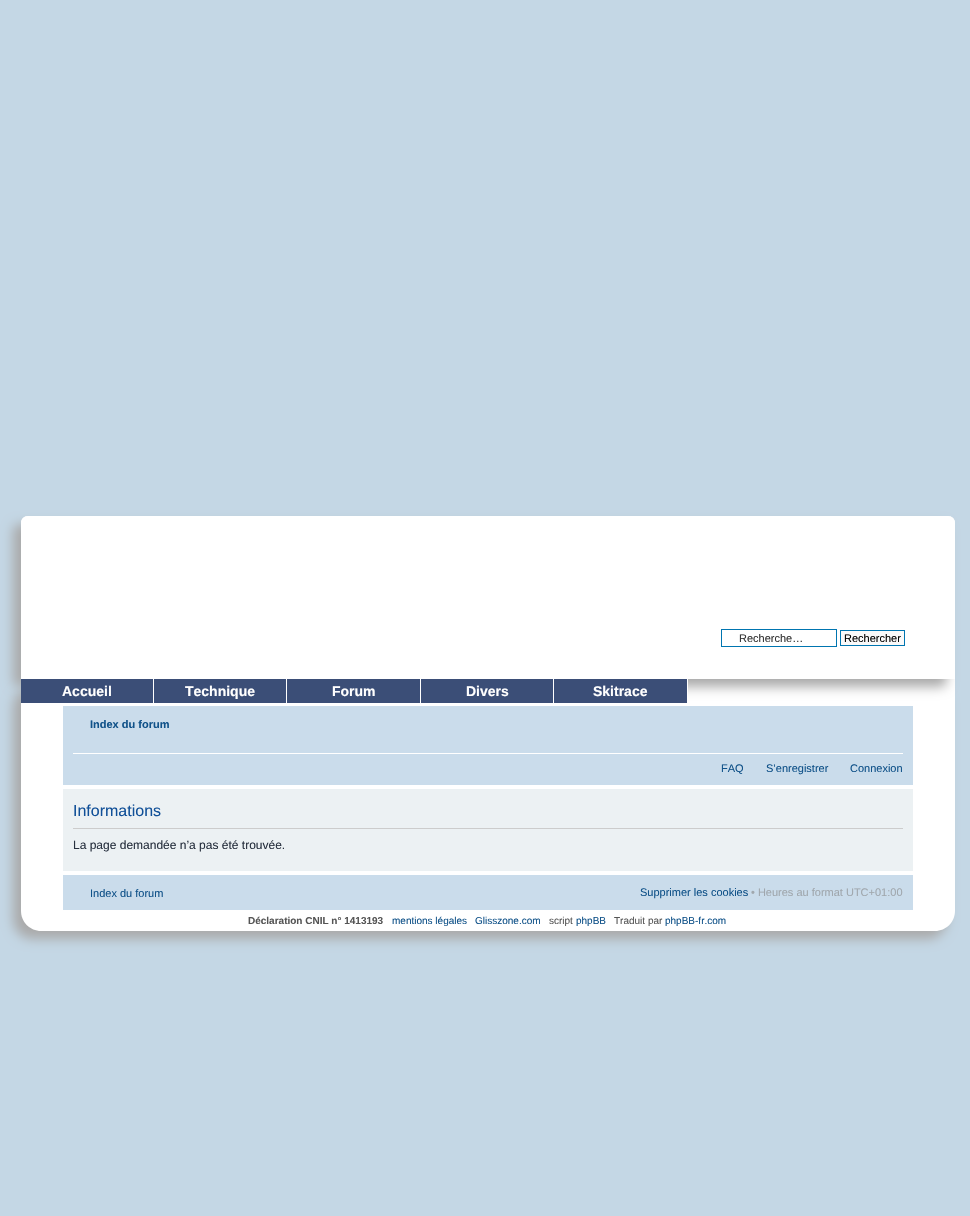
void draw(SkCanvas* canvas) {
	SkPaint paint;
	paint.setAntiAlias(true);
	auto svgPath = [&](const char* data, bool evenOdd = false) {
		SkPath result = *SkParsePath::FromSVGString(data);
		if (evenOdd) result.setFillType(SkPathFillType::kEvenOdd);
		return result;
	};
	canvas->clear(0xffc4d7e5);
	paint.setColor(0xffaaaaaa);
	paint.setMaskFilter(SkMaskFilter::MakeBlur(kNormal_SkBlurStyle, 6));
	canvas->drawRoundRect(SkRect::MakeXYWH(13, 687, 934, 252), 20, 20, paint);
	paint.setMaskFilter(nullptr);
	paint.setColor(0xffffffff);
	canvas->drawPath(svgPath("M21 679H955V911C955 922 946 931 935 931H41C30 931 21 922 21 911Z"), paint);
	paint.setColor(0xffaaaaaa);
	paint.setMaskFilter(SkMaskFilter::MakeBlur(kNormal_SkBlurStyle, 6));
	canvas->drawRoundRect(SkRect::MakeXYWH(13, 524, 934, 163), 7, 7, paint);
	paint.setMaskFilter(nullptr);
	paint.setColor(0xffffffff);
	canvas->drawPath(svgPath("M28 516H948C952 516 955 519 955 523V679H21V523C21 519 24 516 28 516Z"), paint);
	canvas->drawPath(svgPath("M28 516H948C952 516 955 519 955 523V679H21V523C21 519 24 516 28 516ZM28 518H948C951 518 953 520 953 523V679H23V523C23 520 25 518 28 518Z", true), paint);
	paint.setStroke(true);
	paint.setStrokeWidth(1);
	paint.setColor(0xff0075b0);
	canvas->drawRect(SkRect::MakeXYWH(721.5, 629.5, 115, 17), paint);
	SkFont f1(fontMgr->matchFamilyStyle("Liberation Sans", SkFontStyle::Normal()), 11);
	f1.setSubpixel(true);
	paint.setStroke(false);
	paint.setColor(0xff333333);
	canvas->drawString("Recherche…", 739, 642, f1, paint);
	paint.setColor(0xfffafafa);
	canvas->drawRect(SkRect::MakeXYWH(840.5, 630.5, 64, 15), paint);
	paint.setStroke(true);
	paint.setColor(0xff0075b0);
	canvas->drawRect(SkRect::MakeXYWH(840.5, 630.5, 64, 15), paint);
	paint.setStroke(false);
	paint.setColor(0xff000000);
	canvas->drawString("Rechercher", 844, 642, f1, paint);
	paint.setColor(0xffcadceb);
	canvas->drawRect(SkRect::MakeXYWH(63, 706, 850, 79), paint);
	paint.setColor(0xffffffff);
	canvas->drawRect(SkRect::MakeXYWH(73, 753, 830, 1), paint);
	SkFont f2(fontMgr->matchFamilyStyle("Liberation Sans", SkFontStyle::Bold()), 11);
	f2.setSubpixel(true);
	paint.setColor(0xff105289);
	canvas->drawString("Index du forum", 90, 728, f2, paint);
	canvas->drawString("FAQ", 721, 772, f1, paint);
	canvas->drawString("S’enregistrer", 766, 772, f1, paint);
	canvas->drawString("Connexion", 850, 772, f1, paint);
	paint.setColor(0xffecf1f3);
	canvas->drawRect(SkRect::MakeXYWH(63, 789, 850, 82), paint);
	paint.setColor(0xffcccccc);
	canvas->drawRect(SkRect::MakeXYWH(73, 828, 830, 1), paint);
	SkFont f3(fontMgr->matchFamilyStyle("Liberation Sans", SkFontStyle::Normal()), 16);
	f3.setSubpixel(true);
	paint.setColor(0xff115098);
	canvas->drawString("Informations", 73, 816, f3, paint);
	SkFont f4(fontMgr->matchFamilyStyle("Liberation Sans", SkFontStyle::Normal()), 12);
	f4.setSubpixel(true);
	paint.setColor(0xff28313f);
	canvas->drawString("La page demandée n’a pas été trouvée.", 73, 849, f4, paint);
	paint.setColor(0xffcadceb);
	canvas->drawRect(SkRect::MakeXYWH(63, 875, 850, 35), paint);
	paint.setColor(0xff105289);
	canvas->drawString("Index du forum", 90, 897, f1, paint);
	canvas->drawString("Supprimer les cookies", 640, 896, f1, paint);
	paint.setColor(0xffa0a7ad);
	canvas->drawString("• Heures au format UTC+01:00", 751, 896, f1, paint);
	SkFont f5(fontMgr->matchFamilyStyle("Liberation Sans", SkFontStyle::Bold()), 10);
	f5.setSubpixel(true);
	paint.setColor(0xff555555);
	canvas->drawString("Déclaration CNIL n° 1413193", 248, 924, f5, paint);
	SkFont f6(fontMgr->matchFamilyStyle("Liberation Sans", SkFontStyle::Normal()), 10);
	f6.setSubpixel(true);
	paint.setColor(0xff105289);
	canvas->drawString("mentions légales", 392, 924, f6, paint);
	canvas->drawString("Glisszone.com", 475, 924, f6, paint);
	paint.setColor(0xff555555);
	canvas->drawString("script", 549, 924, f6, paint);
	paint.setColor(0xff105289);
	canvas->drawString("phpBB", 576, 924, f6, paint);
	paint.setColor(0xff555555);
	canvas->drawString("Traduit par", 614, 924, f6, paint);
	paint.setColor(0xff105289);
	canvas->drawString("phpBB-fr.com", 665, 924, f6, paint);
	paint.setColor(0xff3b4e77);
	canvas->drawRect(SkRect::MakeXYWH(21, 679, 132, 24), paint);
	paint.setColor(0xffffffff);
	canvas->drawRect(SkRect::MakeXYWH(153, 679, 1, 24), paint);
	SkFont f7(fontMgr->matchFamilyStyle("Liberation Sans", SkFontStyle::Bold()), 14);
	f7.setSubpixel(true);
	canvas->drawString("Accueil", 62, 696, f7, paint);
	paint.setColor(0xff3b4e77);
	canvas->drawRect(SkRect::MakeXYWH(154, 679, 132, 24), paint);
	paint.setColor(0xffffffff);
	canvas->drawRect(SkRect::MakeXYWH(286, 679, 1, 24), paint);
	canvas->drawString("Technique", 185, 696, f7, paint);
	paint.setColor(0xff3b4e77);
	canvas->drawRect(SkRect::MakeXYWH(287, 679, 133, 24), paint);
	paint.setColor(0xffffffff);
	canvas->drawRect(SkRect::MakeXYWH(420, 679, 1, 24), paint);
	canvas->drawString("Forum", 332, 696, f7, paint);
	paint.setColor(0xff3b4e77);
	canvas->drawRect(SkRect::MakeXYWH(421, 679, 132, 24), paint);
	paint.setColor(0xffffffff);
	canvas->drawRect(SkRect::MakeXYWH(553, 679, 1, 24), paint);
	canvas->drawString("Divers", 466, 696, f7, paint);
	paint.setColor(0xff3b4e77);
	canvas->drawRect(SkRect::MakeXYWH(554, 679, 133, 24), paint);
	paint.setColor(0xffffffff);
	canvas->drawRect(SkRect::MakeXYWH(687, 679, 1, 24), paint);
	canvas->drawString("Skitrace", 593, 696, f7, paint);
}
